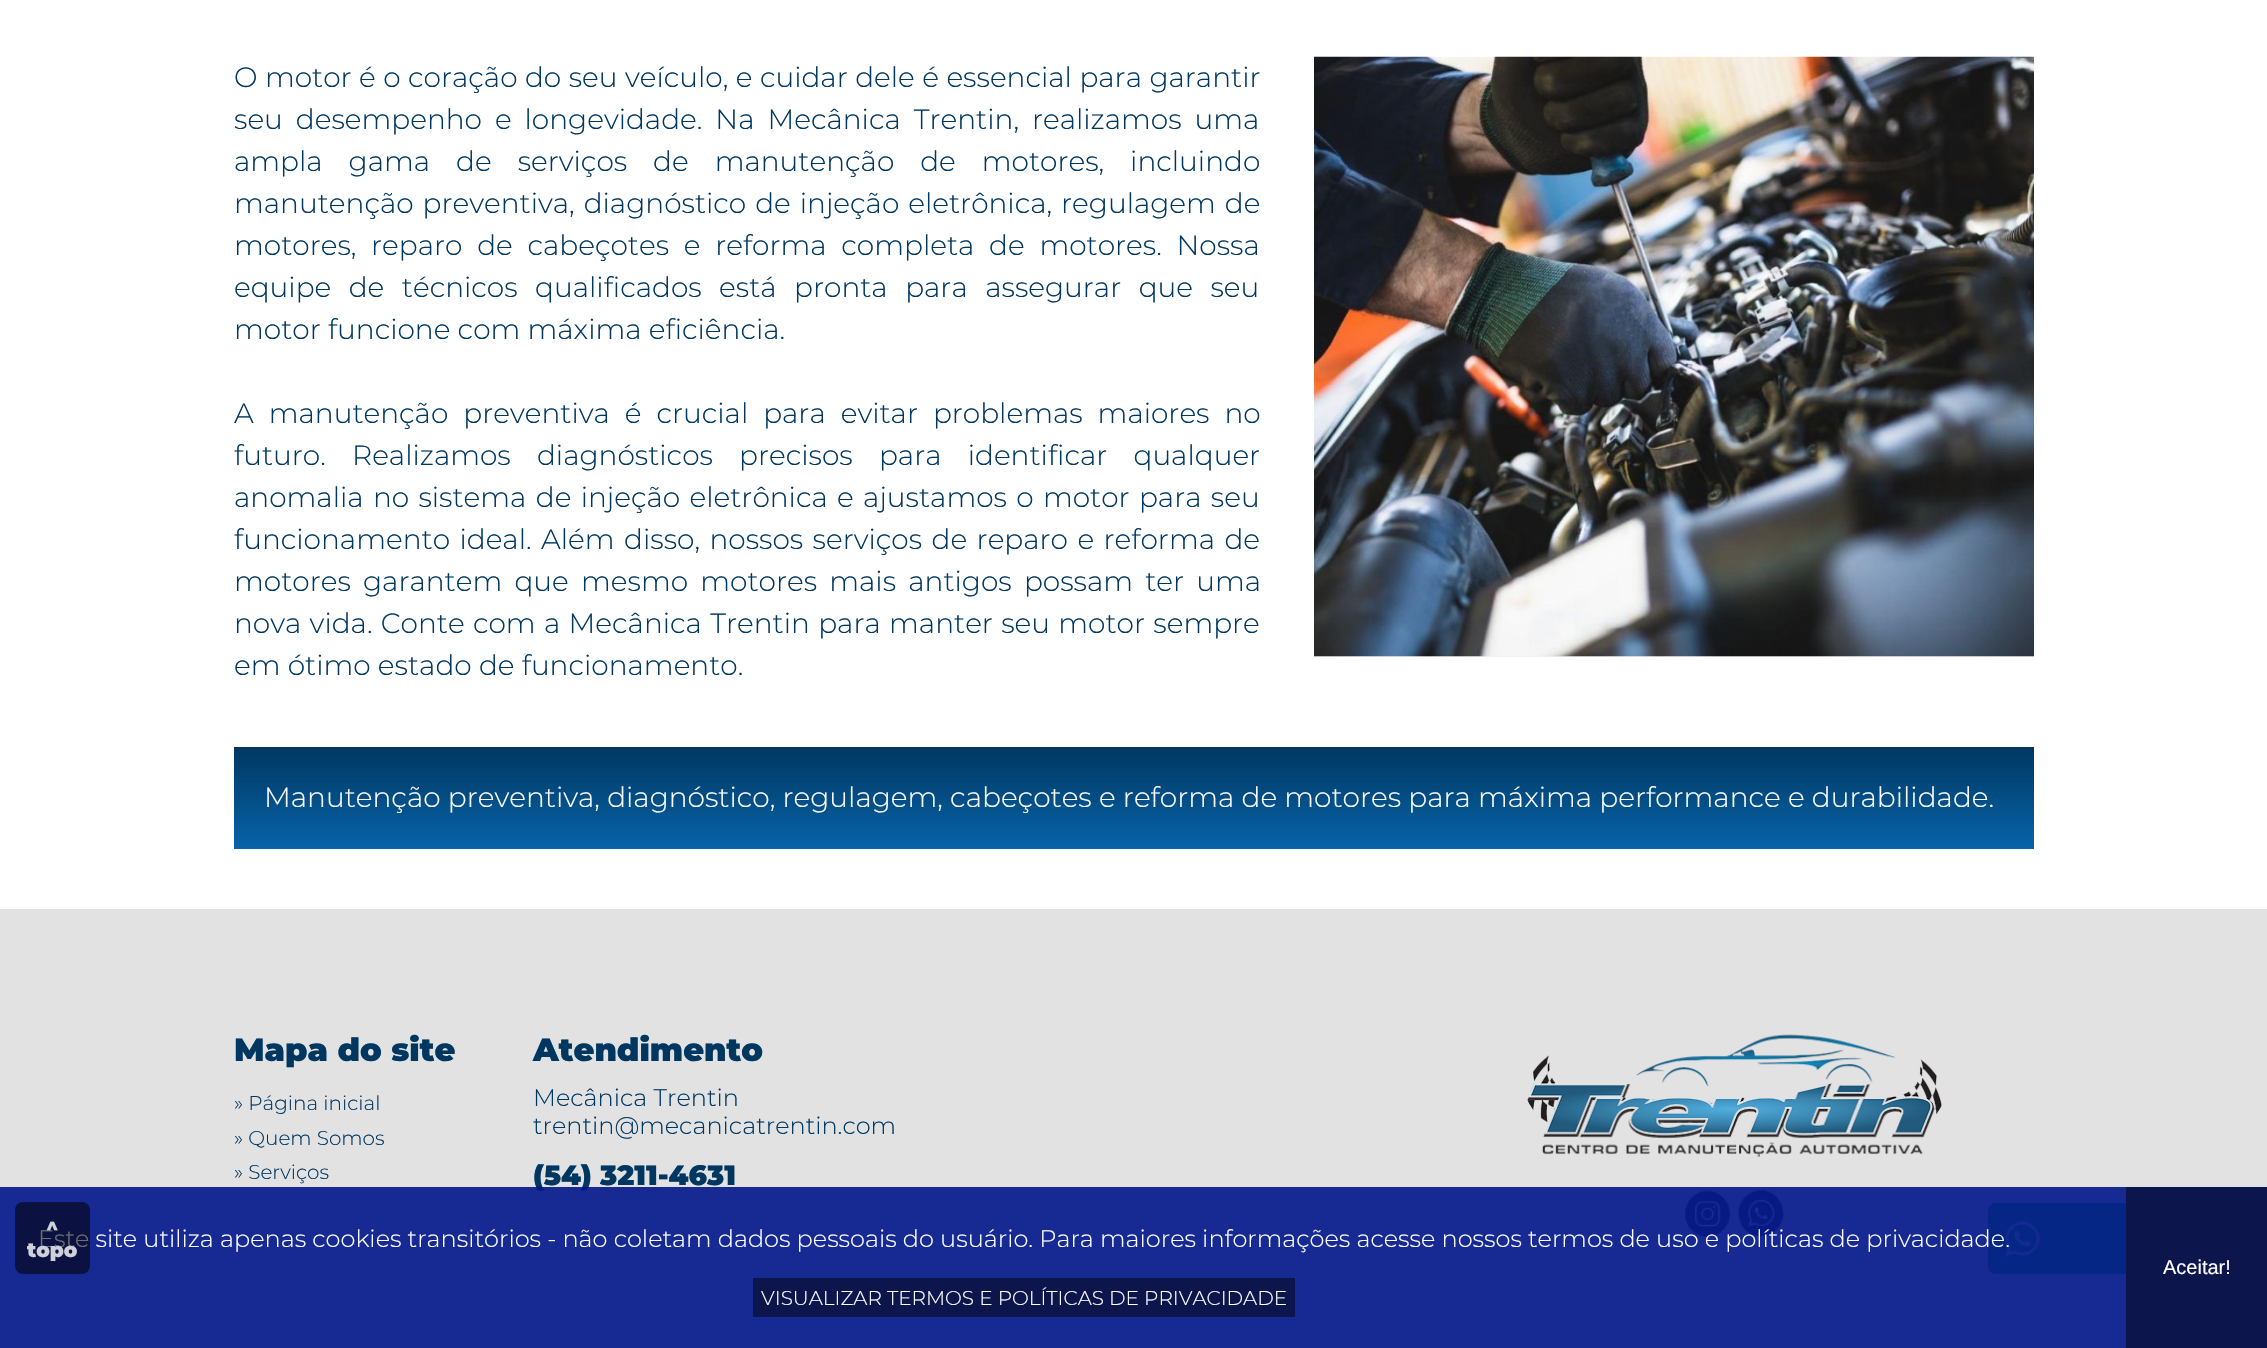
void draw(SkCanvas* canvas) {
	SkPaint paint;
	paint.setAntiAlias(true);
	auto spacedText = [&](const char* s, float x, float y, const SkFont& font, const SkPaint& ink, float letter, float word) {
		std::vector<SkGlyphID> glyphs(font.countText(s, strlen(s), SkTextEncoding::kUTF8));
		std::vector<float> xs(glyphs.size());
		font.textToGlyphs(s, strlen(s), SkTextEncoding::kUTF8, glyphs);
		font.getXPos(glyphs, xs, x);
		float extra = 0;
		for (size_t i = 0; i < glyphs.size(); i++) {
			xs[i] += extra;
			extra += letter + word * (glyphs[i] == font.unicharToGlyph(' '));
		}
		canvas->drawTextBlob(SkTextBlob::MakeFromPosHGlyphs(glyphs, xs, y, font), 0, 0, ink);
	};
	canvas->clear(0xffffffff);
	SkFont f1(fontMgr->matchFamilyStyle("Montserrat", SkFontStyle(300, SkFontStyle::kNormal_Width, SkFontStyle::kUpright_Slant)), 28);
	f1.setSubpixel(true);
	paint.setColor(0xff003761);
	spacedText("O motor é o coração do seu veículo, e cuidar dele é essencial para garantir", 234, 87, f1, paint, 0, 0.25);
	paint.setColor(0xfff0f0f0);
	canvas->drawRect(SkRect::MakeXYWH(1314, 656, 720, 1), paint);
	canvas->drawImageRect(SkImages::DeferredFromEncodedData(SkData::MakeFromFileName("img1.png")), SkRect::MakeXYWH(1314, 56, 720, 601), SkSamplingOptions());
	paint.setColor(0xff003761);
	spacedText("seu desempenho e longevidade. Na Mecânica Trentin, realizamos uma", 234, 129, f1, paint, 0, 5.75);
	spacedText("ampla gama de serviços de manutenção de motores, incluindo", 234, 171, f1, paint, 0, 18.75);
	spacedText("manutenção preventiva, diagnóstico de injeção eletrônica, regulagem de", 234, 213, f1, paint, 0, 1.75);
	spacedText("motores, reparo de cabeçotes e reforma completa de motores. Nossa", 234, 255, f1, paint, 0, 7.5);
	spacedText("equipe de técnicos qualificados está pronta para assegurar que seu", 234, 297, f1, paint, 0, 10.25);
	canvas->drawString("motor funcione com máxima eficiência.", 234, 339, f1, paint);
	spacedText("A manutenção preventiva é crucial para evitar problemas maiores no", 234, 423, f1, paint, 0, 7.75);
	spacedText("futuro. Realizamos diagnósticos precisos para identificar qualquer", 234, 465, f1, paint, 0, 19);
	spacedText("anomalia no sistema de injeção eletrônica e ajustamos o motor para seu", 234, 507, f1, paint, 0, 2.1);
	spacedText("funcionamento ideal. Além disso, nossos serviços de reparo e reforma de", 234, 549, f1, paint, 0, 2.25);
	spacedText("motores garantem que mesmo motores mais antigos possam ter uma", 234, 591, f1, paint, 0, 5);
	spacedText("nova vida. Conte com a Mecânica Trentin para manter seu motor sempre", 234, 633, f1, paint, 0, 1.1);
	canvas->drawString("em ótimo estado de funcionamento.", 234, 675, f1, paint);
	{
		const SkColor colors[] = {0xff003761, 0xff0764a9};
		const float stops[] = {0, 1};
		const SkPoint ends[] = {{1134, 747}, {1134, 849}};
		paint.setShader(SkGradientShader::MakeLinear(ends, colors, stops, 2, SkTileMode::kClamp));
		paint.setAlpha(255);
	}
	canvas->drawRect(SkRect::MakeXYWH(234, 747, 1800, 102), paint);
	paint.setShader(nullptr);
	paint.setColor(0xffffffff);
	canvas->drawString("Manutenção preventiva, diagnóstico, regulagem, cabeçotes e reforma de motores para máxima performance e durabilidade.", 264, 807, f1, paint);
	paint.setColor(0xffe2e2e2);
	canvas->drawRect(SkRect::MakeXYWH(0, 909, 2267, 439), paint);
	SkFont f2(fontMgr->matchFamilyStyle("Montserrat", SkFontStyle(900, SkFontStyle::kNormal_Width, SkFontStyle::kUpright_Slant)), 32);
	f2.setSubpixel(true);
	paint.setColor(0xff003761);
	canvas->drawString("Mapa do site", 234, 1061, f2, paint);
	SkFont f3(fontMgr->matchFamilyStyle("Montserrat", SkFontStyle(300, SkFontStyle::kNormal_Width, SkFontStyle::kUpright_Slant)), 20);
	f3.setSubpixel(true);
	canvas->drawString("» Página inicial", 234, 1110, f3, paint);
	canvas->drawString("» Quem Somos", 234, 1145, f3, paint);
	canvas->drawString("» Serviços", 234, 1179, f3, paint);
	canvas->drawString("Atendimento", 533, 1061, f2, paint);
	SkFont f4(fontMgr->matchFamilyStyle("Montserrat", SkFontStyle(300, SkFontStyle::kNormal_Width, SkFontStyle::kUpright_Slant)), 24);
	f4.setSubpixel(true);
	canvas->drawString("Mecânica Trentin", 533, 1106, f4, paint);
	canvas->drawString("trentin@mecanicatrentin.com", 533, 1134, f4, paint);
	SkFont f5(fontMgr->matchFamilyStyle("Montserrat", SkFontStyle(900, SkFontStyle::kNormal_Width, SkFontStyle::kUpright_Slant)), 28);
	f5.setSubpixel(true);
	canvas->drawString("(54) 3211-4631", 533, 1185, f5, paint);
	canvas->drawImageRect(SkImages::DeferredFromEncodedData(SkData::MakeFromFileName("img2.png")), SkRect::MakeXYWH(1527, 1034, 415, 123), SkSamplingOptions());
	canvas->drawImageRect(SkImages::DeferredFromEncodedData(SkData::MakeFromFileName("img3.png")), SkRect::MakeXYWH(1684, 1190, 46, 47), SkSamplingOptions());
	canvas->drawImageRect(SkImages::DeferredFromEncodedData(SkData::MakeFromFileName("img4.png")), SkRect::MakeXYWH(1738, 1190, 46, 47), SkSamplingOptions());
	paint.setColor(0xff37c761);
	canvas->drawRoundRect(SkRect::MakeXYWH(1988, 1203, 265, 71), 8, 8, paint);
	canvas->drawImageRect(SkImages::DeferredFromEncodedData(SkData::MakeFromFileName("img5.png")), SkRect::MakeXYWH(2004, 1220, 37, 38), SkSamplingOptions());
	paint.setColor(0xe6001489);
	canvas->drawRect(SkRect::MakeXYWH(0, 1187, 2126, 161), paint);
	paint.setColor(0xffffffff);
	canvas->drawString("Este site utiliza apenas cookies transitórios - não coletam dados pessoais do usuário. Para maiores informações acesse nossos termos de uso e políticas de privacidade.", 38, 1247, f4, paint);
	paint.setColor(0x8f000000);
	canvas->drawRoundRect(SkRect::MakeXYWH(15, 1202, 75, 72), 8, 8, paint);
	SkFont f6(fontMgr->matchFamilyStyle("Montserrat", SkFontStyle(900, SkFontStyle::kNormal_Width, SkFontStyle::kUpright_Slant)), 20);
	f6.setSubpixel(true);
	paint.setColor(0xffcfd1d9);
	canvas->drawString("^", 46, 1233, f6, paint);
	canvas->drawString("topo", 27, 1257, f6, paint);
	paint.setColor(0xff0d164c);
	canvas->drawRect(SkRect::MakeXYWH(753, 1278, 542, 39), paint);
	paint.setColor(0xffffffff);
	canvas->drawString("VISUALIZAR TERMOS E POLÍTICAS DE PRIVACIDADE", 761, 1305, f3, paint);
	paint.setColor(0xff0d164c);
	canvas->drawRect(SkRect::MakeXYWH(2126, 1187, 141, 161), paint);
	SkFont f7(fontMgr->matchFamilyStyle("Liberation Sans", SkFontStyle::Normal()), 20);
	f7.setSubpixel(true);
	paint.setColor(0xffffffff);
	canvas->drawString("Aceitar!", 2163, 1274, f7, paint);
}
